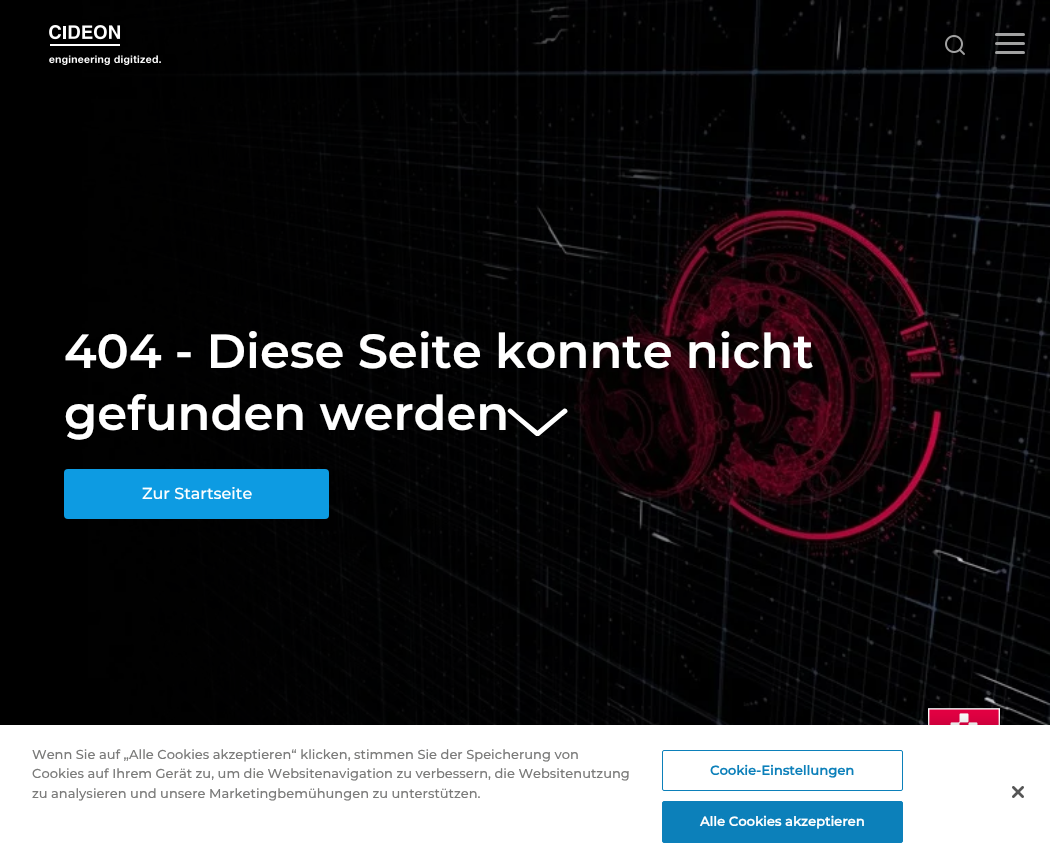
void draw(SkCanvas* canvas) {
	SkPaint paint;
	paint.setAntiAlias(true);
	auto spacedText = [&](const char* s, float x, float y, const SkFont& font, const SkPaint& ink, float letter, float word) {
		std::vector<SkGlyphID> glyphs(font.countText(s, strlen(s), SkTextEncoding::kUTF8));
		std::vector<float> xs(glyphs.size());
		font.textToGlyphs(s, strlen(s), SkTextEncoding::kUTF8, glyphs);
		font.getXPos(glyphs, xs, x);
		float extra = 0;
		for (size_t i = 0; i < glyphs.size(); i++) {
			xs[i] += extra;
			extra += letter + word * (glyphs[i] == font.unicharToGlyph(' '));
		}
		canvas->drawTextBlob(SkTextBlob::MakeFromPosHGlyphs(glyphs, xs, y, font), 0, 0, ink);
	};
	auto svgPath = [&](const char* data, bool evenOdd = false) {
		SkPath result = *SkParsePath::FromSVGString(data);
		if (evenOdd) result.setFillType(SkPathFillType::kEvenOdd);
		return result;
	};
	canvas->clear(0xff000000);
	canvas->drawImageRect(SkImages::DeferredFromEncodedData(SkData::MakeFromFileName("img3.png")), SkRect::MakeXYWH(82, 0, 968, 725), SkSamplingOptions());
	{
		const SkColor colors[] = {0xff000000, 0x00000000};
		const float stops[] = {0, 1};
		const SkPoint ends[] = {{0, 387}, {1050, 386}};
		paint.setShader(SkGradientShader::MakeLinear(ends, colors, stops, 2, SkTileMode::kClamp));
		paint.setAlpha(255);
	}
	canvas->drawRect(SkRect::MakeXYWH(82, 0, 946, 725), paint);
	canvas->drawImageRect(SkImages::DeferredFromEncodedData(SkData::MakeFromFileName("img1.png")), SkRect::MakeXYWH(49, 25, 112, 40), SkSamplingOptions());
	canvas->drawImageRect(SkImages::DeferredFromEncodedData(SkData::MakeFromFileName("img2.png")), SkRect::MakeXYWH(945, 35, 20, 20), SkSamplingOptions());
	paint.setShader(nullptr);
	paint.setColor(0xffa1a1a1);
	canvas->drawRoundRect(SkRect::MakeXYWH(995, 42, 30, 3), 1.5, 1.5, paint);
	canvas->drawRoundRect(SkRect::MakeXYWH(995, 33, 30, 3), 1.5, 1.5, paint);
	canvas->drawRoundRect(SkRect::MakeXYWH(995, 51, 30, 3), 1.5, 1.5, paint);
	SkFont f1(fontMgr->matchFamilyStyle("Montserrat", SkFontStyle(600, SkFontStyle::kNormal_Width, SkFontStyle::kUpright_Slant)), 48);
	f1.setSubpixel(true);
	paint.setColor(0xffffffff);
	canvas->drawString("404 - Diese Seite konnte nicht", 64, 368, f1, paint);
	canvas->drawString("gefunden werden", 64, 430, f1, paint);
	canvas->drawPath(svgPath("M535.5 435.5L508 412C507 410.5 508.5 408.5 510.5 408.5C512.5 409 516 413 516 413L538.5 431.5C541 434 538 437.5 535.5 435.5Z"), paint);
	canvas->drawPath(svgPath("M536.5 431.5L564 408.5C566 408 568 410 567.5 412C566.5 413.5 562 416.5 562 416.5L539.5 435.5C537 437.5 534 433.5 536.5 431.5Z"), paint);
	paint.setColor(0xff0d9be2);
	canvas->drawRoundRect(SkRect::MakeXYWH(64, 469, 265, 50), 4, 4, paint);
	SkFont f2(fontMgr->matchFamilyStyle("Montserrat", SkFontStyle(500, SkFontStyle::kNormal_Width, SkFontStyle::kUpright_Slant)), 16);
	f2.setSubpixel(true);
	paint.setColor(0xffffffff);
	canvas->drawString("Zur Startseite", 142, 499, f2, paint);
	canvas->drawImageRect(SkImages::DeferredFromEncodedData(SkData::MakeFromFileName("img4.png")), SkRect::MakeXYWH(928, 708, 72, 17), SkSamplingOptions());
	paint.setColor(0x33000000);
	paint.setMaskFilter(SkMaskFilter::MakeBlur(kNormal_SkBlurStyle, 9));
	canvas->drawRect(SkRect::MakeXYWH(0, 725, 1050, 138), paint);
	paint.setMaskFilter(nullptr);
	paint.setColor(0xffffffff);
	canvas->drawRect(SkRect::MakeXYWH(0, 725, 1050, 138), paint);
	SkFont f3(fontMgr->matchFamilyStyle("Montserrat", SkFontStyle(500, SkFontStyle::kNormal_Width, SkFontStyle::kUpright_Slant)), 13);
	f3.setSubpixel(true);
	paint.setColor(0xff7b7b7a);
	canvas->drawString("Wenn Sie auf „Alle Cookies akzeptieren“ klicken, stimmen Sie der Speicherung von", 32, 759, f3, paint);
	canvas->drawString("Cookies auf Ihrem Gerät zu, um die Websitenavigation zu verbessern, die Websitenutzung", 32, 778, f3, paint);
	canvas->drawString("zu analysieren und unsere Marketingbemühungen zu unterstützen.", 32, 798, f3, paint);
	paint.setStroke(true);
	paint.setStrokeWidth(1);
	paint.setColor(0xff0c80ba);
	canvas->drawRoundRect(SkRect::MakeXYWH(662.5, 750.5, 240, 40), 1.5, 1.5, paint);
	SkFont f4(fontMgr->matchFamilyStyle("Montserrat", SkFontStyle::Bold()), 13);
	f4.setSubpixel(true);
	paint.setStroke(false);
	spacedText("Cookie-Einstellungen", 710, 775, f4, paint, 0.1, 0);
	canvas->drawRoundRect(SkRect::MakeXYWH(662.5, 801.5, 240, 41), 1.5, 1.5, paint);
	paint.setStroke(true);
	canvas->drawRoundRect(SkRect::MakeXYWH(662.5, 801.5, 240, 41), 1.5, 1.5, paint);
	paint.setStroke(false);
	paint.setColor(0xffffffff);
	spacedText("Alle Cookies akzeptieren", 700, 826, f4, paint, 0.1, 0);
	canvas->drawImageRect(SkImages::DeferredFromEncodedData(SkData::MakeFromFileName("img5.png")), SkRect::MakeXYWH(1012, 786, 12, 12), SkSamplingOptions());
}
